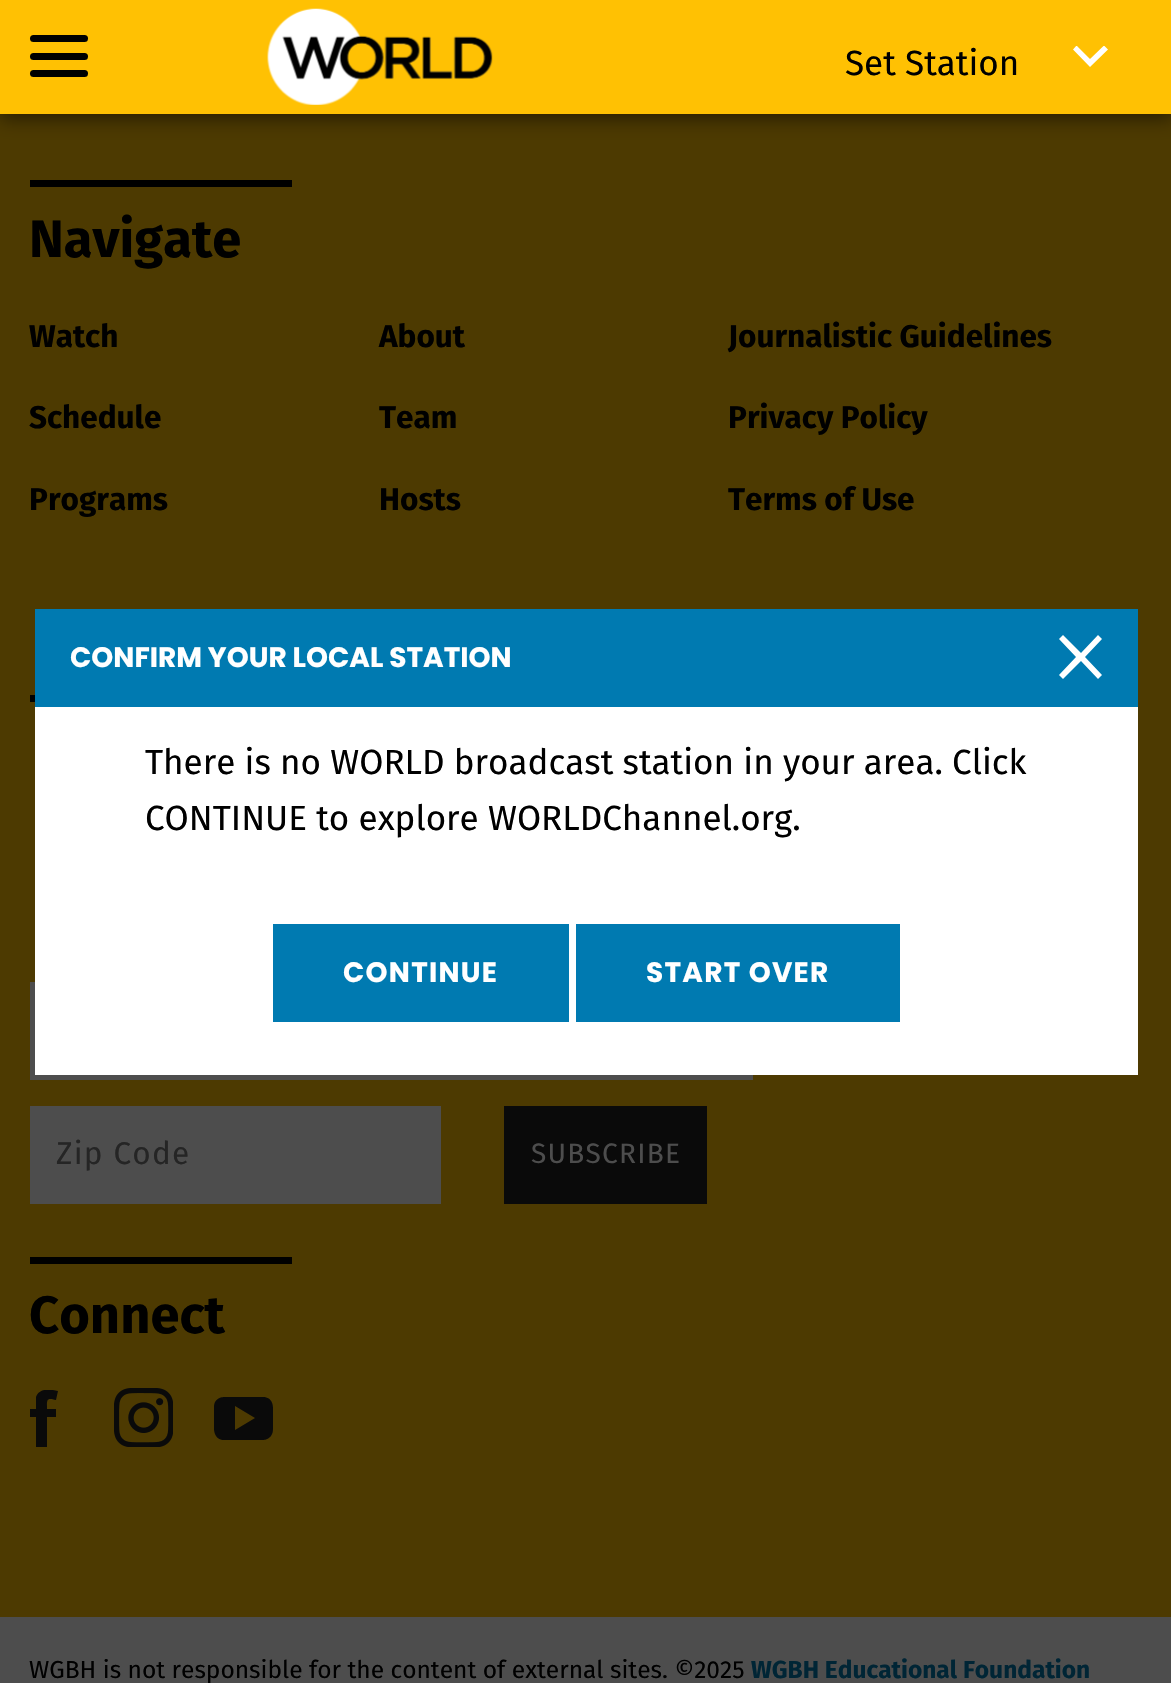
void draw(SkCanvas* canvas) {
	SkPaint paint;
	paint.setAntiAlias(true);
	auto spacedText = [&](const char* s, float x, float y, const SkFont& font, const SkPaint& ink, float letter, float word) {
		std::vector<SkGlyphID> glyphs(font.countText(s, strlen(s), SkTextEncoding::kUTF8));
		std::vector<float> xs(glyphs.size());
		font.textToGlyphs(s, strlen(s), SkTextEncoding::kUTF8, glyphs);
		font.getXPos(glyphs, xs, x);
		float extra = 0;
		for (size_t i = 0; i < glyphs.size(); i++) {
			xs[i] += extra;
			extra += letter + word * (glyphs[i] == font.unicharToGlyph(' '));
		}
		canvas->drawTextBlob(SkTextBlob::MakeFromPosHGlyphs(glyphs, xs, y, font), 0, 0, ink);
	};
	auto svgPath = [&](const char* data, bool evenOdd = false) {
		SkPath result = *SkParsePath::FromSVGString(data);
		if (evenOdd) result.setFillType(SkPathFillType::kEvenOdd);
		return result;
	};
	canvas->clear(0xffffffff);
	paint.setColor(0xff4d3a01);
	canvas->drawPath(svgPath("M0 5V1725H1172V52Z"), paint);
	paint.setColor(0x80000000);
	paint.setMaskFilter(SkMaskFilter::MakeBlur(kNormal_SkBlurStyle, 9));
	canvas->drawRect(SkRect::MakeXYWH(0, 5, 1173, 114), paint);
	paint.setMaskFilter(nullptr);
	paint.setColor(0xffffc103);
	canvas->drawRect(SkRect::MakeXYWH(0, 0, 1171, 114), paint);
	paint.setColor(0xff000000);
	canvas->drawRoundRect(SkRect::MakeXYWH(30, 35, 58, 7), 3.5, 3.5, paint);
	canvas->drawRoundRect(SkRect::MakeXYWH(30, 53, 58, 7), 3.5, 3.5, paint);
	canvas->drawRoundRect(SkRect::MakeXYWH(30, 70, 58, 7), 3.5, 3.5, paint);
	canvas->drawImageRect(SkImages::DeferredFromEncodedData(SkData::MakeFromFileName("img1.png")), SkRect::MakeXYWH(267, 8, 226, 97), SkSamplingOptions());
	SkFont f1(fontMgr->matchFamilyStyle("Fira Sans", SkFontStyle::Normal()), 35);
	f1.setSubpixel(true);
	canvas->drawString("Set Station", 845, 75, f1, paint);
	canvas->save();
	canvas->clipRect(SkRect::MakeXYWH(1073, 46, 35, 22));
	paint.setColor(0xffffffff);
	canvas->drawPath(svgPath("M1073 49.5L1090 67L1108 49.5L1104 45.5L1090 59L1076.5 45.5Z", true), paint);
	canvas->restore();
	paint.setColor(0xff000000);
	canvas->drawRect(SkRect::MakeXYWH(30, 180, 262, 7), paint);
	SkFont f2(fontMgr->matchFamilyStyle("Fira Sans", SkFontStyle::Bold()), 52.5);
	f2.setSubpixel(true);
	canvas->drawString("Navigate", 29, 257, f2, paint);
	SkFont f3(fontMgr->matchFamilyStyle("Fira Sans", SkFontStyle::Bold()), 31.5);
	f3.setSubpixel(true);
	canvas->drawString("Watch", 29, 347, f3, paint);
	canvas->drawString("Schedule", 29, 428, f3, paint);
	canvas->drawString("Programs", 29, 510, f3, paint);
	canvas->drawString("About", 379, 347, f3, paint);
	canvas->drawString("Team", 379, 428, f3, paint);
	canvas->drawString("Hosts", 379, 510, f3, paint);
	canvas->drawString("Journalistic Guidelines", 728, 347, f3, paint);
	canvas->drawString("Privacy Policy", 728, 428, f3, paint);
	canvas->drawString("Terms of Use", 728, 510, f3, paint);
	canvas->drawRect(SkRect::MakeXYWH(30, 695, 5, 7), paint);
	paint.setColor(0xff4d4d4d);
	canvas->drawRect(SkRect::MakeXYWH(30, 982, 723, 98), paint);
	canvas->drawRect(SkRect::MakeXYWH(30, 1106, 411, 98), paint);
	SkFont f4(fontMgr->matchFamilyStyle("Fira Sans", SkFontStyle::Normal()), 31.5);
	f4.setSubpixel(true);
	paint.setColor(0xff252525);
	spacedText("Zip Code", 56, 1164, f4, paint, 1.25, 0);
	paint.setColor(0xff0a0a0a);
	canvas->drawRect(SkRect::MakeXYWH(504, 1106, 203, 98), paint);
	SkFont f5(fontMgr->matchFamilyStyle("Fira Sans", SkFontStyle::Normal()), 28);
	f5.setSubpixel(true);
	paint.setColor(0xff4d4d4d);
	spacedText("SUBSCRIBE", 531, 1163, f5, paint, 1.25, 0);
	paint.setColor(0xff000000);
	canvas->drawRect(SkRect::MakeXYWH(30, 1257, 262, 7), paint);
	canvas->drawString("Connect", 29, 1333, f2, paint);
	canvas->save();
	canvas->clipRect(SkRect::MakeXYWH(30, 1390, 28, 57));
	paint.setColor(0xff0a0a0a);
	canvas->drawPath(svgPath("M30 1409H36V1397C39 1388 50 1389 58 1391L56 1400C46 1397 47 1400 47 1409H56V1417H47V1448H36V1417H30Z"), paint);
	canvas->restore();
	canvas->drawImageRect(SkImages::DeferredFromEncodedData(SkData::MakeFromFileName("img2.png")), SkRect::MakeXYWH(114, 1388, 59, 59), SkSamplingOptions());
	canvas->drawPath(svgPath("M255 1418L235 1430V1406ZM273 1429V1407C273 1407 273 1397 263 1397H224C224 1397 214 1397 214 1407V1429C214 1429 214 1440 224 1440H263C263 1440 273 1440 273 1429"), paint);
	paint.setColor(0xff4d4d4d);
	canvas->drawRect(SkRect::MakeXYWH(0, 1617, 1171, 66), paint);
	SkFont f6(fontMgr->matchFamilyStyle("Fira Sans", SkFontStyle::Normal()), 24.5);
	f6.setSubpixel(true);
	paint.setColor(0xff000000);
	canvas->drawString("WGBH is not responsible for the content of external sites. ©2025", 29, 1678, f6, paint);
	SkFont f7(fontMgr->matchFamilyStyle("Fira Sans", SkFontStyle::Bold()), 24.5);
	f7.setSubpixel(true);
	paint.setColor(0xff002535);
	canvas->drawString("WGBH Educational Foundation", 751, 1678, f7, paint);
	paint.setColor(0xffffffff);
	canvas->drawRect(SkRect::MakeXYWH(35, 707, 1103, 368), paint);
	paint.setColor(0xff007ab1);
	canvas->drawRect(SkRect::MakeXYWH(35, 609, 1103, 98), paint);
	SkFont f8(fontMgr->matchFamilyStyle("Poppins", SkFontStyle::Bold()), 28);
	f8.setSubpixel(true);
	paint.setColor(0xffffffff);
	canvas->drawString("CONFIRM YOUR LOCAL STATION", 70, 667, f8, paint);
	canvas->drawPath(svgPath("M1102 675L1085 657L1102 639L1098 635L1081 653L1063 635L1059 639L1076 657L1059 675L1063 679L1081 661L1098 679Z"), paint);
	paint.setColor(0xff000000);
	canvas->drawString("There is no WORLD broadcast station in your area. Click", 145, 774, f1, paint);
	canvas->drawString("CONTINUE to explore WORLDChannel.org.", 145, 830, f1, paint);
	paint.setColor(0xff007ab1);
	canvas->drawRect(SkRect::MakeXYWH(273, 924, 296, 98), paint);
	paint.setColor(0xffffffff);
	spacedText("CONTINUE", 343, 982, f8, paint, 1.25, 0);
	paint.setColor(0xff007ab1);
	canvas->drawRect(SkRect::MakeXYWH(576, 924, 324, 98), paint);
	paint.setColor(0xffffffff);
	spacedText("START OVER", 646, 982, f8, paint, 1.25, 0);
}
